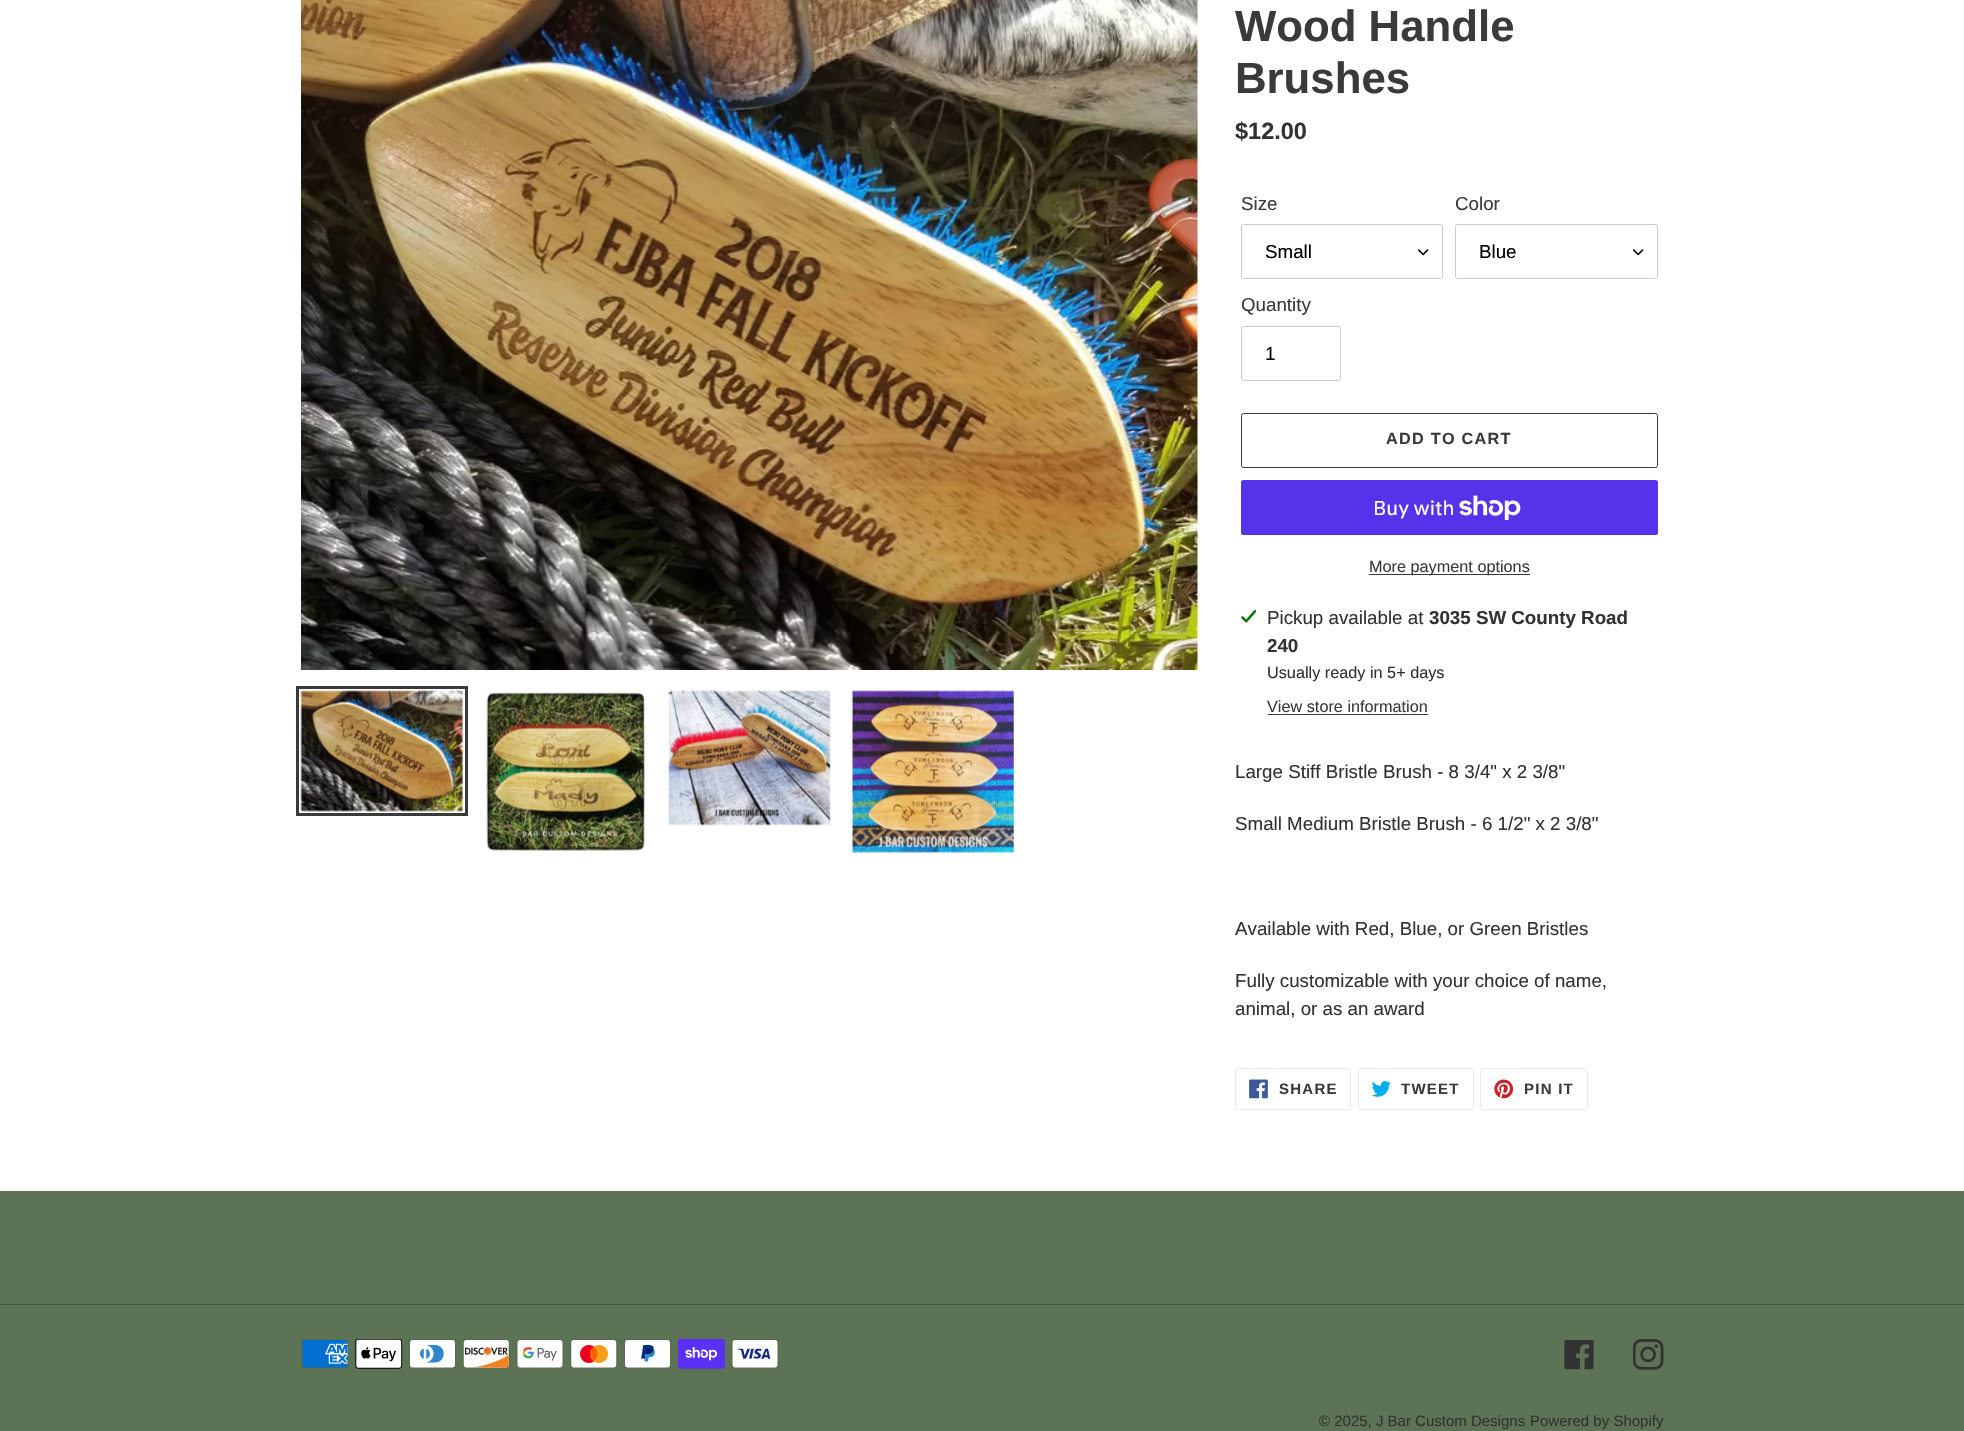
void draw(SkCanvas* canvas) {
	SkPaint paint;
	paint.setAntiAlias(true);
	auto spacedText = [&](const char* s, float x, float y, const SkFont& font, const SkPaint& ink, float letter, float word) {
		std::vector<SkGlyphID> glyphs(font.countText(s, strlen(s), SkTextEncoding::kUTF8));
		std::vector<float> xs(glyphs.size());
		font.textToGlyphs(s, strlen(s), SkTextEncoding::kUTF8, glyphs);
		font.getXPos(glyphs, xs, x);
		float extra = 0;
		for (size_t i = 0; i < glyphs.size(); i++) {
			xs[i] += extra;
			extra += letter + word * (glyphs[i] == font.unicharToGlyph(' '));
		}
		canvas->drawTextBlob(SkTextBlob::MakeFromPosHGlyphs(glyphs, xs, y, font), 0, 0, ink);
	};
	canvas->clear(0xffffffff);
	canvas->drawImageRect(SkImages::DeferredFromEncodedData(SkData::MakeFromFileName("img1.png")), SkRect::MakeXYWH(301, 0, 897, 670), SkSamplingOptions());
	paint.setStroke(true);
	paint.setStrokeWidth(3);
	paint.setColor(0xff3a3a3a);
	canvas->drawRect(SkRect::MakeXYWH(297.5, 687.5, 169, 127), paint);
	canvas->drawImageRect(SkImages::DeferredFromEncodedData(SkData::MakeFromFileName("img2.png")), SkRect::MakeXYWH(300, 690, 163, 122), SkSamplingOptions());
	canvas->drawImageRect(SkImages::DeferredFromEncodedData(SkData::MakeFromFileName("img3.png")), SkRect::MakeXYWH(485, 691, 161, 161), SkSamplingOptions());
	canvas->drawImageRect(SkImages::DeferredFromEncodedData(SkData::MakeFromFileName("img4.png")), SkRect::MakeXYWH(668, 690, 163, 136), SkSamplingOptions());
	canvas->drawImageRect(SkImages::DeferredFromEncodedData(SkData::MakeFromFileName("img5.png")), SkRect::MakeXYWH(851, 690, 163, 163), SkSamplingOptions());
	SkFont f1(fontMgr->matchFamilyStyle("Liberation Sans", SkFontStyle::Bold()), 43.75);
	f1.setSubpixel(true);
	paint.setStroke(false);
	canvas->drawString("Wood Handle", 1235, 41, f1, paint);
	canvas->drawString("Brushes", 1235, 93, f1, paint);
	SkFont f2(fontMgr->matchFamilyStyle("Liberation Sans", SkFontStyle::Bold()), 23.5);
	f2.setSubpixel(true);
	paint.setColor(0xff333232);
	canvas->drawString("$12.00", 1235, 139, f2, paint);
	SkFont f3(fontMgr->matchFamilyStyle("Liberation Sans", SkFontStyle::Normal()), 18.75);
	f3.setSubpixel(true);
	paint.setColor(0xff3a3a3a);
	canvas->drawString("Size", 1241, 210, f3, paint);
	canvas->drawImageRect(SkImages::DeferredFromEncodedData(SkData::MakeFromFileName("img6.png")), SkRect::MakeXYWH(1418, 249, 11, 7), SkSamplingOptions());
	paint.setStroke(true);
	paint.setStrokeWidth(1);
	paint.setColor(0xffcccccc);
	canvas->drawRoundRect(SkRect::MakeXYWH(1241.5, 224.5, 201, 54), 2, 2, paint);
	paint.setStroke(false);
	paint.setColor(0xff000000);
	canvas->drawString("Small", 1265, 258, f3, paint);
	paint.setColor(0xff3a3a3a);
	canvas->drawString("Color", 1455, 210, f3, paint);
	canvas->drawImageRect(SkImages::DeferredFromEncodedData(SkData::MakeFromFileName("img6.png")), SkRect::MakeXYWH(1633, 249, 11, 7), SkSamplingOptions());
	paint.setStroke(true);
	paint.setColor(0xffcccccc);
	canvas->drawRoundRect(SkRect::MakeXYWH(1455.5, 224.5, 202, 54), 2, 2, paint);
	paint.setStroke(false);
	paint.setColor(0xff000000);
	canvas->drawString("Blue", 1479, 258, f3, paint);
	paint.setColor(0xff3a3a3a);
	canvas->drawString("Quantity", 1241, 311, f3, paint);
	paint.setStroke(true);
	paint.setColor(0xffcccccc);
	canvas->drawRoundRect(SkRect::MakeXYWH(1241.5, 326.5, 99, 54), 2, 2, paint);
	paint.setStroke(false);
	paint.setColor(0xff000000);
	canvas->drawString("1", 1265, 360, f3, paint);
	paint.setStroke(true);
	paint.setColor(0xff3a3a3a);
	canvas->drawRoundRect(SkRect::MakeXYWH(1241.5, 413.5, 416, 54), 2, 2, paint);
	SkFont f4(fontMgr->matchFamilyStyle("Liberation Sans", SkFontStyle::Bold()), 16.25);
	f4.setSubpixel(true);
	paint.setStroke(false);
	spacedText("ADD TO CART", 1386, 444, f4, paint, 1.25, 0);
	paint.setColor(0xff5433eb);
	canvas->drawRoundRect(SkRect::MakeXYWH(1241, 480, 417, 55), 2.5, 2.5, paint);
	SkFont f5(fontMgr->matchFamilyStyle("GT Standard", SkFontStyle::Normal()), 20);
	f5.setSubpixel(true);
	paint.setColor(0xffffffff);
	canvas->drawString("Buy with", 1373, 515, f5, paint);
	canvas->drawImageRect(SkImages::DeferredFromEncodedData(SkData::MakeFromFileName("img7.png")), SkRect::MakeXYWH(1459, 495, 62, 25), SkSamplingOptions());
	paint.setColor(0xff3a3a3a);
	canvas->drawRect(SkRect::MakeXYWH(1369, 574, 161, 1), paint);
	SkFont f6(fontMgr->matchFamilyStyle("Liberation Sans", SkFontStyle::Normal()), 16.25);
	f6.setSubpixel(true);
	canvas->drawString("More payment options", 1369, 572, f6, paint);
	canvas->drawImageRect(SkImages::DeferredFromEncodedData(SkData::MakeFromFileName("img8.png")), SkRect::MakeXYWH(1241, 610, 15, 13), SkSamplingOptions());
	paint.setColor(0xff333232);
	canvas->drawString("Pickup available at", 1267, 624, f3, paint);
	SkFont f7(fontMgr->matchFamilyStyle("Liberation Sans", SkFontStyle::Bold()), 18.75);
	f7.setSubpixel(true);
	canvas->drawString("3035 SW County Road", 1429, 624, f7, paint);
	canvas->drawString("240", 1267, 652, f7, paint);
	canvas->drawString("Usually ready in 5+ days", 1267, 678, f6, paint);
	paint.setColor(0xff3a3a3a);
	canvas->drawString("View store information", 1267, 712, f6, paint);
	canvas->drawRect(SkRect::MakeXYWH(1268, 714, 160, 1), paint);
	paint.setColor(0xff333232);
	canvas->drawString("Large Stiff Bristle Brush - 8 3/4\" x 2 3/8\"", 1235, 778, f3, paint);
	canvas->drawString("Small Medium Bristle Brush - 6 1/2\" x 2 3/8\"", 1235, 830, f3, paint);
	canvas->drawString("Available with Red, Blue, or Green Bristles", 1235, 935, f3, paint);
	canvas->drawString("Fully customizable with your choice of name,", 1235, 987, f3, paint);
	canvas->drawString("animal, or as an award", 1235, 1015, f3, paint);
	paint.setStroke(true);
	paint.setColor(0xffebebeb);
	canvas->drawRoundRect(SkRect::MakeXYWH(1235.5, 1068.5, 115, 41), 2, 2, paint);
	canvas->drawImageRect(SkImages::DeferredFromEncodedData(SkData::MakeFromFileName("img9.png")), SkRect::MakeXYWH(1249, 1079, 19, 20), SkSamplingOptions());
	SkFont f8(fontMgr->matchFamilyStyle("Liberation Sans", SkFontStyle::Bold()), 15);
	f8.setSubpixel(true);
	paint.setStroke(false);
	paint.setColor(0xff3a3a3a);
	spacedText("SHARE", 1279, 1094, f8, paint, 1.25, 0);
	paint.setStroke(true);
	paint.setColor(0xffebebeb);
	canvas->drawRoundRect(SkRect::MakeXYWH(1358.5, 1068.5, 115, 41), 2, 2, paint);
	canvas->drawImageRect(SkImages::DeferredFromEncodedData(SkData::MakeFromFileName("img10.png")), SkRect::MakeXYWH(1371, 1081, 20, 16), SkSamplingOptions());
	paint.setStroke(false);
	paint.setColor(0xff3a3a3a);
	spacedText("TWEET", 1401, 1094, f8, paint, 1.25, 0);
	paint.setStroke(true);
	paint.setColor(0xffebebeb);
	canvas->drawRoundRect(SkRect::MakeXYWH(1480.5, 1068.5, 107, 41), 2, 2, paint);
	canvas->drawImageRect(SkImages::DeferredFromEncodedData(SkData::MakeFromFileName("img11.png")), SkRect::MakeXYWH(1494, 1079, 20, 20), SkSamplingOptions());
	paint.setStroke(false);
	paint.setColor(0xff3a3a3a);
	spacedText("PIN IT", 1524, 1094, f8, paint, 1.25, 0);
	paint.setColor(0xff5d7355);
	canvas->drawRect(SkRect::MakeXYWH(0, 1191, 1964, 240), paint);
	paint.setColor(0xff45563f);
	canvas->drawRect(SkRect::MakeXYWH(0, 1304, 1964, 1), paint);
	canvas->drawImageRect(SkImages::DeferredFromEncodedData(SkData::MakeFromFileName("img12.png")), SkRect::MakeXYWH(301, 1339, 48, 30), SkSamplingOptions());
	canvas->drawImageRect(SkImages::DeferredFromEncodedData(SkData::MakeFromFileName("img13.png")), SkRect::MakeXYWH(355, 1339, 48, 30), SkSamplingOptions());
	canvas->drawImageRect(SkImages::DeferredFromEncodedData(SkData::MakeFromFileName("img14.png")), SkRect::MakeXYWH(409, 1339, 47, 30), SkSamplingOptions());
	canvas->drawImageRect(SkImages::DeferredFromEncodedData(SkData::MakeFromFileName("img15.png")), SkRect::MakeXYWH(463, 1339, 47, 30), SkSamplingOptions());
	canvas->drawImageRect(SkImages::DeferredFromEncodedData(SkData::MakeFromFileName("img16.png")), SkRect::MakeXYWH(516, 1339, 48, 30), SkSamplingOptions());
	canvas->drawImageRect(SkImages::DeferredFromEncodedData(SkData::MakeFromFileName("img17.png")), SkRect::MakeXYWH(570, 1339, 48, 30), SkSamplingOptions());
	canvas->drawImageRect(SkImages::DeferredFromEncodedData(SkData::MakeFromFileName("img18.png")), SkRect::MakeXYWH(624, 1339, 47, 30), SkSamplingOptions());
	canvas->drawImageRect(SkImages::DeferredFromEncodedData(SkData::MakeFromFileName("img19.png")), SkRect::MakeXYWH(678, 1339, 47, 30), SkSamplingOptions());
	canvas->drawImageRect(SkImages::DeferredFromEncodedData(SkData::MakeFromFileName("img20.png")), SkRect::MakeXYWH(731, 1339, 48, 30), SkSamplingOptions());
	canvas->drawImageRect(SkImages::DeferredFromEncodedData(SkData::MakeFromFileName("img21.png")), SkRect::MakeXYWH(1564, 1340, 30, 30), SkSamplingOptions());
	canvas->drawImageRect(SkImages::DeferredFromEncodedData(SkData::MakeFromFileName("img22.png")), SkRect::MakeXYWH(1633, 1339, 31, 31), SkSamplingOptions());
	SkFont f9(fontMgr->matchFamilyStyle("Liberation Sans", SkFontStyle::Normal()), 15);
	f9.setSubpixel(true);
	paint.setColor(0xff333232);
	canvas->drawString("© 2025, J Bar Custom Designs", 1319, 1426, f9, paint);
	canvas->drawString("Powered by Shopify", 1530, 1426, f9, paint);
}
